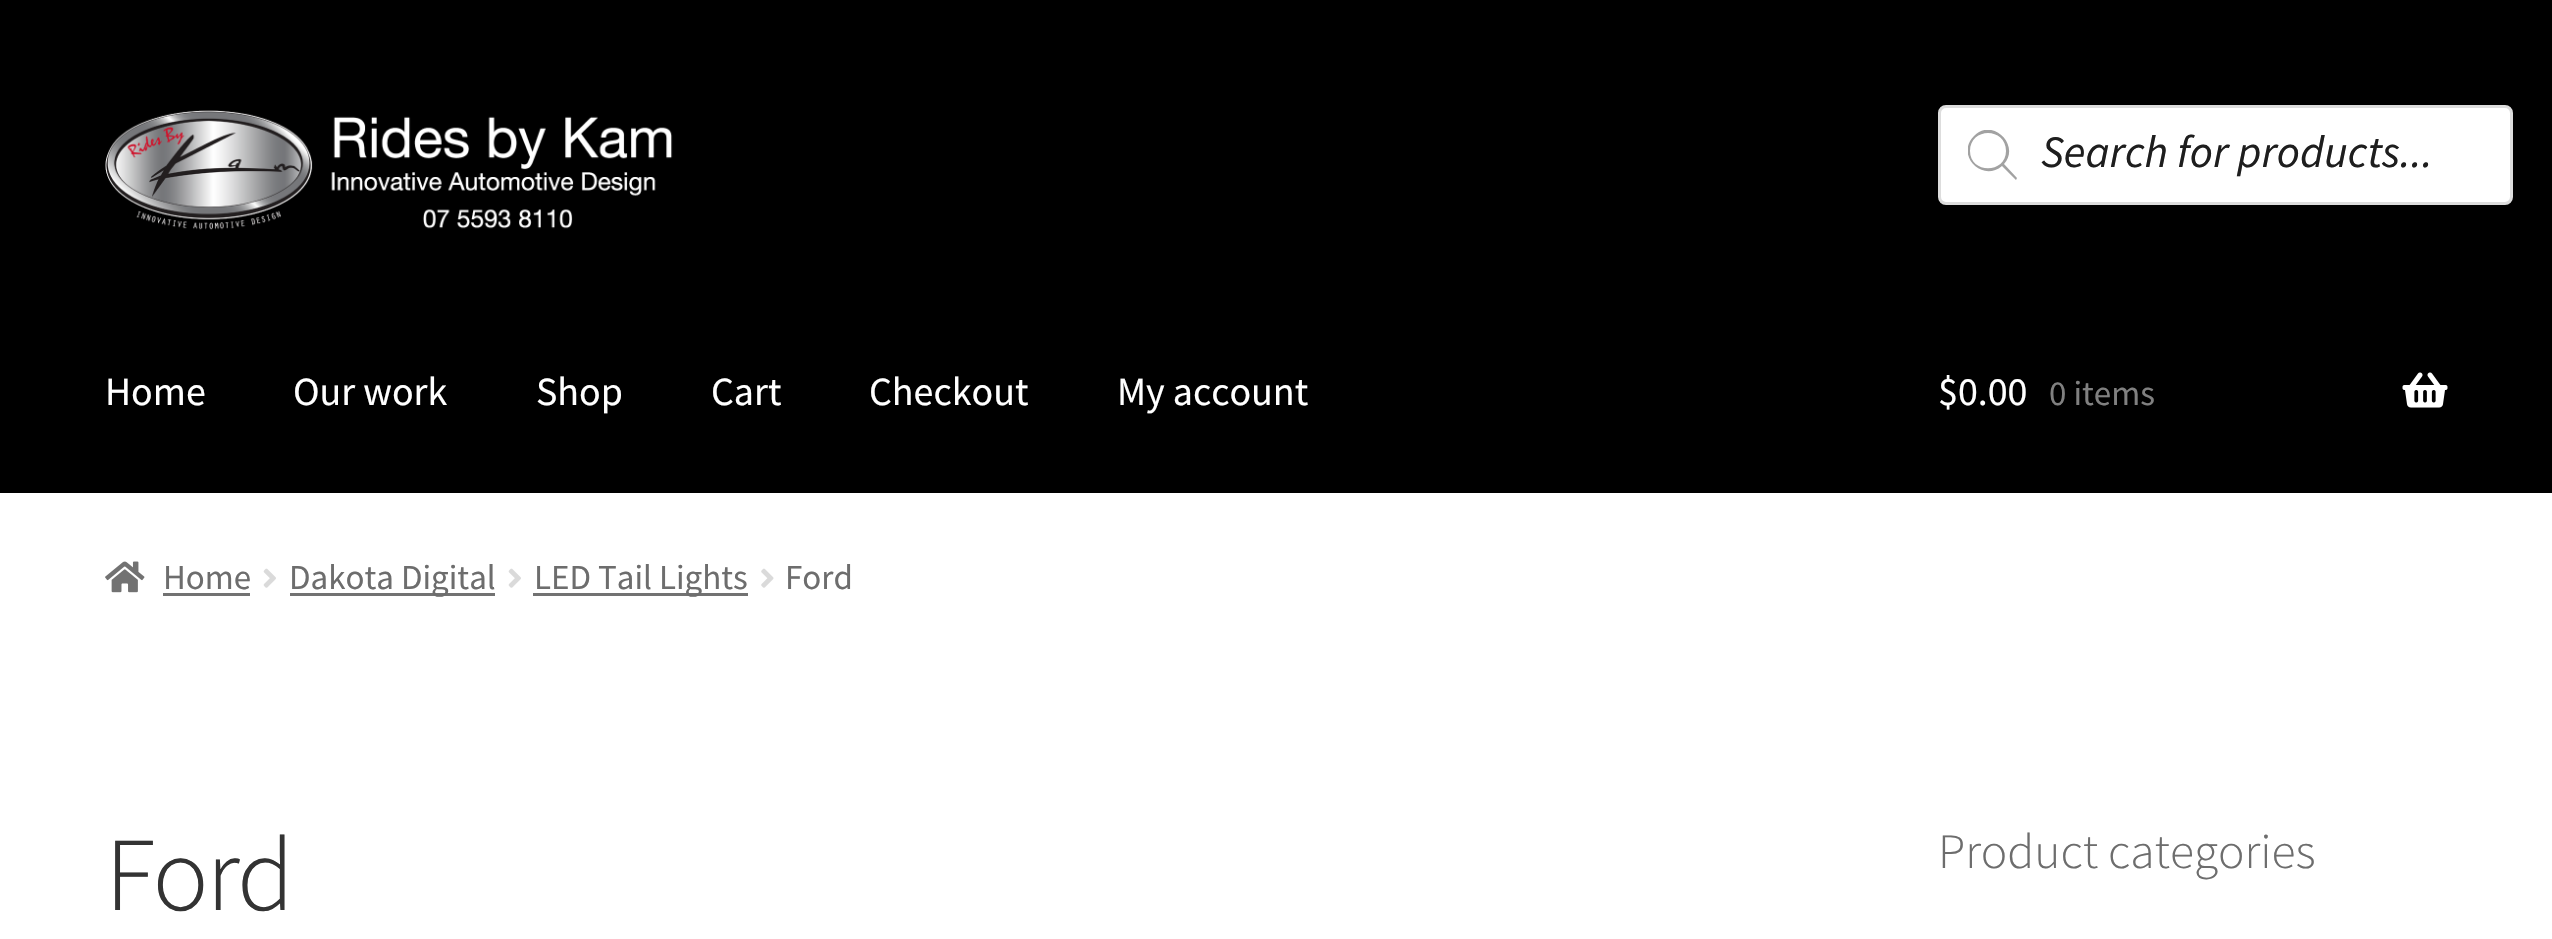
void draw(SkCanvas* canvas) {
	SkPaint paint;
	paint.setAntiAlias(true);
	auto spacedText = [&](const char* s, float x, float y, const SkFont& font, const SkPaint& ink, float letter, float word) {
		std::vector<SkGlyphID> glyphs(font.countText(s, strlen(s), SkTextEncoding::kUTF8));
		std::vector<float> xs(glyphs.size());
		font.textToGlyphs(s, strlen(s), SkTextEncoding::kUTF8, glyphs);
		font.getXPos(glyphs, xs, x);
		float extra = 0;
		for (size_t i = 0; i < glyphs.size(); i++) {
			xs[i] += extra;
			extra += letter + word * (glyphs[i] == font.unicharToGlyph(' '));
		}
		canvas->drawTextBlob(SkTextBlob::MakeFromPosHGlyphs(glyphs, xs, y, font), 0, 0, ink);
	};
	auto svgPath = [&](const char* data, bool evenOdd = false) {
		SkPath result = *SkParsePath::FromSVGString(data);
		if (evenOdd) result.setFillType(SkPathFillType::kEvenOdd);
		return result;
	};
	canvas->clear(0xffffffff);
	paint.setColor(0xff000000);
	canvas->drawRect(SkRect::MakeXYWH(0, 0, 2552, 493), paint);
	canvas->drawImageRect(SkImages::DeferredFromEncodedData(SkData::MakeFromFileName("img1.png")), SkRect::MakeXYWH(105, 110, 568, 120), SkSamplingOptions());
	paint.setColor(0xffffffff);
	canvas->drawRoundRect(SkRect::MakeXYWH(1939.5, 106.5, 572, 97), 6.5, 6.5, paint);
	paint.setStroke(true);
	paint.setStrokeWidth(3);
	paint.setColor(0xffdddddd);
	canvas->drawRoundRect(SkRect::MakeXYWH(1939.5, 106.5, 572, 97), 6.5, 6.5, paint);
	canvas->save();
	canvas->clipRect(SkRect::MakeXYWH(1968, 130, 50, 50));
	paint.setStroke(false);
	paint.setColor(0xffa2a2a2);
	canvas->drawPath(svgPath("M2017 178L2004 164C2021 145 1992 117 1974 136C1955 155 1982 183 2002 166L2016 180ZM1970 151C1970 127 2006 127 2006 151C2006 174 1970 174 1970 151Z"), paint);
	canvas->restore();
	SkFont f1(fontMgr->matchFamilyStyle("Source Sans Pro", SkFontStyle::Italic()), 45);
	f1.setSubpixel(true);
	paint.setColor(0xff1e1e1e);
	canvas->drawString("Search for products...", 2041, 167, f1, paint);
	SkFont f2(fontMgr->matchFamilyStyle("Source Sans Pro", SkFontStyle::Normal()), 40);
	f2.setSubpixel(true);
	paint.setColor(0xffffffff);
	canvas->drawString("Home", 105, 405, f2, paint);
	canvas->drawString("Our work", 293, 405, f2, paint);
	canvas->drawString("Shop", 536, 405, f2, paint);
	canvas->drawString("Cart", 711, 405, f2, paint);
	canvas->drawString("Checkout", 869, 405, f2, paint);
	canvas->drawString("My account", 1117, 405, f2, paint);
	canvas->drawString("$0.00", 1938, 405, f2, paint);
	SkFont f3(fontMgr->matchFamilyStyle("Source Sans Pro", SkFontStyle::Normal()), 35);
	f3.setSubpixel(true);
	paint.setColor(0xff808080);
	canvas->drawString("0 items", 2049, 405, f3, paint);
	canvas->drawImageRect(SkImages::DeferredFromEncodedData(SkData::MakeFromFileName("img2.png")), SkRect::MakeXYWH(2402, 372, 46, 36), SkSamplingOptions());
	canvas->drawImageRect(SkImages::DeferredFromEncodedData(SkData::MakeFromFileName("img3.png")), SkRect::MakeXYWH(105, 561, 40, 32), SkSamplingOptions());
	paint.setColor(0xff6d6d6d);
	canvas->drawString("Home", 163, 589, f3, paint);
	paint.setColor(0xff727272);
	canvas->drawRect(SkRect::MakeXYWH(163, 593, 87, 3), paint);
	canvas->drawImageRect(SkImages::DeferredFromEncodedData(SkData::MakeFromFileName("img4.png")), SkRect::MakeXYWH(263, 568, 13, 20), SkSamplingOptions());
	canvas->drawRect(SkRect::MakeXYWH(290, 593, 205, 3), paint);
	paint.setColor(0xff6d6d6d);
	canvas->drawString("Dakota Digital", 289, 589, f3, paint);
	canvas->drawImageRect(SkImages::DeferredFromEncodedData(SkData::MakeFromFileName("img4.png")), SkRect::MakeXYWH(508, 568, 13, 20), SkSamplingOptions());
	paint.setColor(0xff727272);
	canvas->drawRect(SkRect::MakeXYWH(533, 593, 215, 3), paint);
	paint.setColor(0xff6d6d6d);
	canvas->drawString("LED Tail Lights", 534, 589, f3, paint);
	canvas->drawImageRect(SkImages::DeferredFromEncodedData(SkData::MakeFromFileName("img5.png")), SkRect::MakeXYWH(761, 568, 13, 20), SkSamplingOptions());
	canvas->drawString("Ford", 785, 589, f3, paint);
	SkFont f4(fontMgr->matchFamilyStyle("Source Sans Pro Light", SkFontStyle(300, SkFontStyle::kNormal_Width, SkFontStyle::kUpright_Slant)), 105);
	f4.setSubpixel(true);
	paint.setColor(0xff333333);
	spacedText("Ford", 105, 910, f4, paint, -2.5, 0);
	SkFont f5(fontMgr->matchFamilyStyle("Source Sans Pro Light", SkFontStyle(300, SkFontStyle::kNormal_Width, SkFontStyle::kUpright_Slant)), 49.5);
	f5.setSubpixel(true);
	paint.setColor(0xff6d6d6d);
	canvas->drawString("Product categories", 1938, 868, f5, paint);
}
